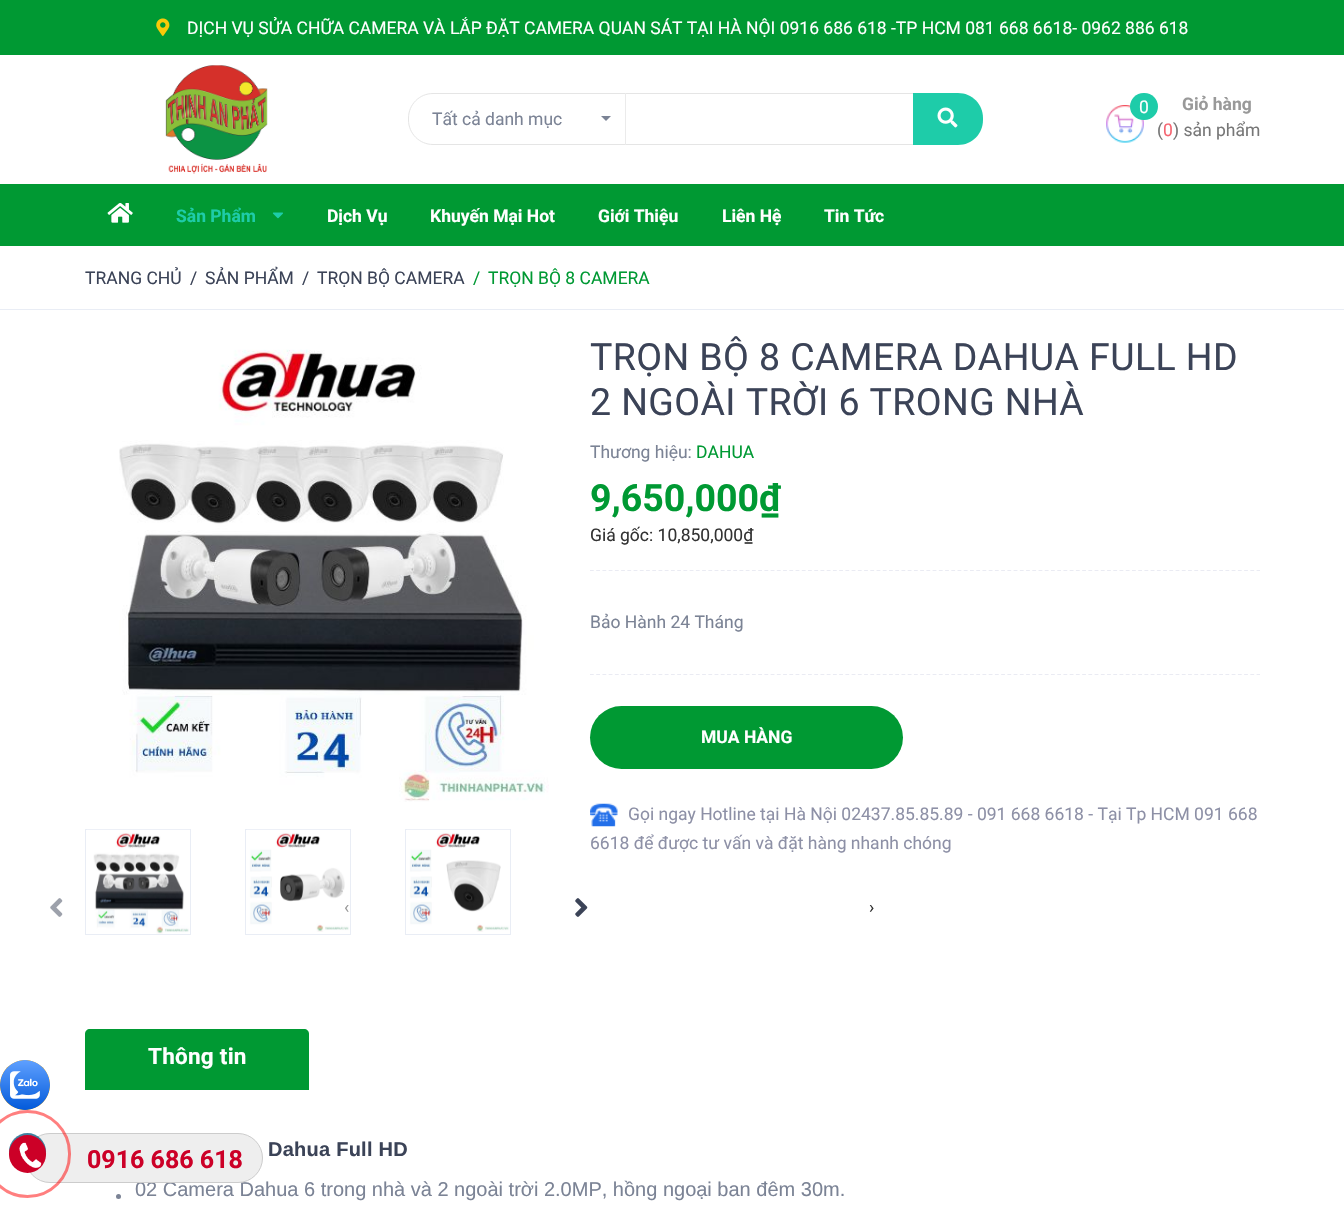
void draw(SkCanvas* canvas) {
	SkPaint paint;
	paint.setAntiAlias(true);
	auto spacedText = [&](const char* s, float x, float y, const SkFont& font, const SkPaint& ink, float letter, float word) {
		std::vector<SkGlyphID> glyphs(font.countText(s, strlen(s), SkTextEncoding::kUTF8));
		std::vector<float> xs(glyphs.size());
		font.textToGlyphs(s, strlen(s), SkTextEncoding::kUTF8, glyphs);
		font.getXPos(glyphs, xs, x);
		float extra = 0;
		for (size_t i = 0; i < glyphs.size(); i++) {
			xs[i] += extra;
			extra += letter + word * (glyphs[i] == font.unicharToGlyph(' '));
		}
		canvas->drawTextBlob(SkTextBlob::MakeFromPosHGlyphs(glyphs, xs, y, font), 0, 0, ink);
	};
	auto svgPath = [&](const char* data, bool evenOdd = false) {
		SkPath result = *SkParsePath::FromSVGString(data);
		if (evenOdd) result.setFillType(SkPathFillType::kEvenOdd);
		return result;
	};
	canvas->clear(0xffffffff);
	paint.setColor(0xff009933);
	canvas->drawRect(SkRect::MakeXYWH(0, 0, 1344, 55), paint);
	canvas->drawImageRect(SkImages::DeferredFromEncodedData(SkData::MakeFromFileName("img1.png")), SkRect::MakeXYWH(156, 18, 14, 18), SkSamplingOptions());
	SkFont f1(fontMgr->matchFamilyStyle("Roboto", SkFontStyle::Normal()), 17.5);
	f1.setSubpixel(true);
	paint.setColor(0xffffffff);
	canvas->drawString("DỊCH VỤ SỬA CHỮA CAMERA VÀ LẮP ĐẶT CAMERA QUAN SÁT TẠI HÀ NỘI 0916 686 618 -TP HCM 081 668 6618- 0962 886 618", 187, 34, f1, paint);
	canvas->drawImageRect(SkImages::DeferredFromEncodedData(SkData::MakeFromFileName("img2.png")), SkRect::MakeXYWH(165, 65, 103, 109), SkSamplingOptions());
	paint.setStroke(true);
	paint.setStrokeWidth(1);
	paint.setColor(0xffe5e5e5);
	canvas->drawPath(svgPath("M433 93.5H913.5V144.5H433C419.5 144.5 408.5 133.5 408.5 120V118C408.5 104.5 419.5 93.5 433 93.5Z"), paint);
	paint.setStroke(false);
	paint.setColor(0xff1ecca9);
	canvas->drawPath(svgPath("M913 93H958C972 93 983 104 983 118V120C983 134 972 145 958 145H913Z"), paint);
	canvas->drawImageRect(SkImages::DeferredFromEncodedData(SkData::MakeFromFileName("img3.png")), SkRect::MakeXYWH(937, 107, 21, 21), SkSamplingOptions());
	paint.setColor(0xffebebeb);
	canvas->drawRect(SkRect::MakeXYWH(625, 93, 1, 52), paint);
	paint.setColor(0xff7b8395);
	canvas->drawString("Tất cả danh mục", 432, 125, f1, paint);
	canvas->drawPath(svgPath("M601 116H611L606 121Z"), paint);
	canvas->drawImageRect(SkImages::DeferredFromEncodedData(SkData::MakeFromFileName("img4.png")), SkRect::MakeXYWH(1106, 105, 38, 38), SkSamplingOptions());
	paint.setColor(0xff1ecca9);
	canvas->drawRoundRect(SkRect::MakeXYWH(1130, 93, 28, 27), 13.5, 13.5, paint);
	paint.setColor(0xffffffff);
	canvas->drawString("0", 1139, 113, f1, paint);
	SkFont f2(fontMgr->matchFamilyStyle("Roboto", SkFontStyle::Bold()), 17.5);
	f2.setSubpixel(true);
	paint.setColor(0xff999999);
	canvas->drawString("Giỏ hàng", 1182, 110, f2, paint);
	paint.setColor(0xff777777);
	canvas->drawString("(", 1157, 136, f1, paint);
	paint.setColor(0xfff56571);
	canvas->drawString("0", 1163, 136, f1, paint);
	paint.setColor(0xff777777);
	canvas->drawString(") sản phẩm", 1173, 136, f1, paint);
	paint.setColor(0xff009933);
	canvas->drawRect(SkRect::MakeXYWH(0, 184, 1344, 62), paint);
	canvas->drawImageRect(SkImages::DeferredFromEncodedData(SkData::MakeFromFileName("img5.png")), SkRect::MakeXYWH(107, 203, 26, 20), SkSamplingOptions());
	paint.setColor(0xff1ecca9);
	canvas->drawString("Sản Phẩm", 176, 222, f2, paint);
	canvas->drawImageRect(SkImages::DeferredFromEncodedData(SkData::MakeFromFileName("img6.png")), SkRect::MakeXYWH(272, 212, 11, 7), SkSamplingOptions());
	paint.setColor(0xffffffff);
	canvas->drawString("Dịch Vụ", 327, 222, f2, paint);
	canvas->drawString("Khuyến Mại Hot", 430, 222, f2, paint);
	canvas->drawString("Giới Thiệu", 598, 222, f2, paint);
	canvas->drawString("Liên Hệ", 722, 222, f2, paint);
	canvas->drawString("Tin Tức", 824, 222, f2, paint);
	paint.setColor(0xffe9edf5);
	canvas->drawRect(SkRect::MakeXYWH(0, 309, 1344, 1), paint);
	paint.setColor(0xff3b4357);
	canvas->drawString("TRANG CHỦ", 85, 284, f1, paint);
	canvas->drawString("/", 190, 284, f1, paint);
	canvas->drawString("SẢN PHẨM", 205, 284, f1, paint);
	canvas->drawString("/", 302, 284, f1, paint);
	canvas->drawString("TRỌN BỘ CAMERA", 317, 284, f1, paint);
	paint.setColor(0xff009933);
	canvas->drawString("/", 473, 284, f1, paint);
	canvas->drawString("TRỌN BỘ 8 CAMERA", 488, 284, f1, paint);
	SkFont f3(fontMgr->matchFamilyStyle("Roboto", SkFontStyle::Normal()), 37.5);
	f3.setSubpixel(true);
	paint.setColor(0xff3b4357);
	spacedText("TRỌN BỘ 8 CAMERA DAHUA FULL HD", 590, 370, f3, paint, 0.4, 0);
	spacedText("2 NGOÀI TRỜI 6 TRONG NHÀ", 590, 415, f3, paint, 0.4, 0);
	paint.setColor(0xff7b8395);
	canvas->drawString("Thương hiệu:", 590, 458, f1, paint);
	paint.setColor(0xff009933);
	canvas->drawString("DAHUA", 696, 458, f1, paint);
	SkFont f4(fontMgr->matchFamilyStyle("Roboto", SkFontStyle::Bold()), 37.5);
	f4.setSubpixel(true);
	canvas->drawString("9,650,000₫", 590, 511, f4, paint);
	paint.setColor(0xff333333);
	canvas->drawString("Giá gốc: 10,850,000₫", 590, 541, f1, paint);
	paint.setStroke(true);
	paint.setStrokeWidth(1.2);
	paint.setColor(0xffeaebf3);
	paint.setPathEffect(SkDashPathEffect::Make({{3.75f, 2.48f}}, 0));
	canvas->drawPath(svgPath("M590 570.5H1260"), paint);
	paint.setPathEffect(nullptr);
	paint.setPathEffect(SkDashPathEffect::Make({{3.75f, 2.48f}}, 0));
	canvas->drawPath(svgPath("M590 674.5H1260"), paint);
	paint.setPathEffect(nullptr);
	paint.setStroke(false);
	paint.setColor(0xff7b8395);
	canvas->drawString("Bảo Hành 24 Tháng", 590, 628, f1, paint);
	paint.setColor(0xff009933);
	canvas->drawRoundRect(SkRect::MakeXYWH(590, 706, 313, 63), 31.5, 31.5, paint);
	paint.setColor(0xffffffff);
	canvas->drawString("MUA HÀNG", 701, 743, f2, paint);
	canvas->drawImageRect(SkImages::DeferredFromEncodedData(SkData::MakeFromFileName("img7.png")), SkRect::MakeXYWH(590, 803, 28, 24), SkSamplingOptions());
	paint.setColor(0xff8d90a6);
	canvas->drawString("Gọi ngay Hotline tại Hà Nội 02437.85.85.89 - 091 668 6618 - Tại Tp HCM 091 668", 628, 820, f1, paint);
	canvas->drawString("6618 để được tư vấn và đặt hàng nhanh chóng", 590, 849, f1, paint);
	canvas->drawImageRect(SkImages::DeferredFromEncodedData(SkData::MakeFromFileName("img8.png")), SkRect::MakeXYWH(119, 349, 430, 453), SkSamplingOptions());
	paint.setStroke(true);
	paint.setStrokeWidth(1);
	paint.setColor(0xffe9edf5);
	canvas->drawRect(SkRect::MakeXYWH(85.5, 829.5, 105, 105), paint);
	canvas->drawImageRect(SkImages::DeferredFromEncodedData(SkData::MakeFromFileName("img9.png")), SkRect::MakeXYWH(87, 829, 103, 105), SkSamplingOptions());
	canvas->drawRect(SkRect::MakeXYWH(245.5, 829.5, 105, 105), paint);
	canvas->drawImageRect(SkImages::DeferredFromEncodedData(SkData::MakeFromFileName("img10.png")), SkRect::MakeXYWH(247, 829, 103, 103), SkSamplingOptions());
	canvas->drawRect(SkRect::MakeXYWH(405.5, 829.5, 105, 105), paint);
	canvas->drawImageRect(SkImages::DeferredFromEncodedData(SkData::MakeFromFileName("img11.png")), SkRect::MakeXYWH(407, 829, 103, 103), SkSamplingOptions());
	canvas->drawImageRect(SkImages::DeferredFromEncodedData(SkData::MakeFromFileName("img12.png")), SkRect::MakeXYWH(50, 898, 13, 19), SkSamplingOptions());
	paint.setStroke(false);
	paint.setColor(0xff999999);
	canvas->drawString("‹", 344, 913, f1, paint);
	canvas->drawImageRect(SkImages::DeferredFromEncodedData(SkData::MakeFromFileName("img13.png")), SkRect::MakeXYWH(575, 898, 13, 19), SkSamplingOptions());
	paint.setColor(0xff333333);
	canvas->drawString("›", 869, 913, f1, paint);
	paint.setColor(0xff009933);
	canvas->drawPath(svgPath("M90 1029H304C307 1029 309 1031 309 1034V1090H85V1034C85 1031 87 1029 90 1029Z"), paint);
	SkFont f5(fontMgr->matchFamilyStyle("Roboto", SkFontStyle::Bold()), 22.5);
	f5.setSubpixel(true);
	paint.setColor(0xffffffff);
	spacedText("Thông tin", 148, 1064, f5, paint, 0.25, 0);
	SkFont f6(fontMgr->matchFamilyStyle("Liberation Sans", SkFontStyle::Bold()), 20);
	f6.setSubpixel(true);
	paint.setColor(0xff3b4357);
	spacedText("Dahua Full HD", 268, 1156, f6, paint, 0.25, 0);
	paint.setColor(0xff7b8395);
	canvas->drawCircle(118.5, 1196.5, 2.5, paint);
	SkFont f7(fontMgr->matchFamilyStyle("Liberation Sans", SkFontStyle::Normal()), 20);
	f7.setSubpixel(true);
	canvas->drawString("02 Camera Dahua 6 trong nhà và 2 ngoài trời 2.0MP, hồng ngoại ban đêm 30m.", 135, 1196, f7, paint);
	paint.setColor(0xfff7a400);
	canvas->drawCircle(25, 1085, 25, paint);
	canvas->drawImageRect(SkImages::DeferredFromEncodedData(SkData::MakeFromFileName("img14.png")), SkRect::MakeXYWH(0, 1060, 50, 50), SkSamplingOptions());
	paint.setColor(0xffeeeeee);
	canvas->drawRoundRect(SkRect::MakeXYWH(25.5, 1133.5, 237, 49), 24.5, 24.5, paint);
	paint.setStroke(true);
	paint.setColor(0xffcccccc);
	canvas->drawRoundRect(SkRect::MakeXYWH(25.5, 1133.5, 237, 49), 24.5, 24.5, paint);
	paint.setStrokeWidth(3);
	paint.setColor(0x80ff0000);
	canvas->drawRoundRect(SkRect::MakeXYWH(-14.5, 1111.5, 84, 85), 42, 42, paint);
	paint.setStroke(false);
	paint.setColor(0xbf005880);
	canvas->drawCircle(27.5, 1151.5, 18.5, paint);
	paint.setColor(0xffcc0027);
	canvas->drawRoundRect(SkRect::MakeXYWH(9, 1135, 37, 38), 18.5, 18.5, paint);
	canvas->drawImageRect(SkImages::DeferredFromEncodedData(SkData::MakeFromFileName("img15.png")), SkRect::MakeXYWH(19, 1142, 23, 26), SkSamplingOptions());
	SkFont f8(fontMgr->matchFamilyStyle("Roboto", SkFontStyle::Bold()), 25);
	f8.setSubpixel(true);
	canvas->drawString("0916 686 618", 87, 1168, f8, paint);
}
